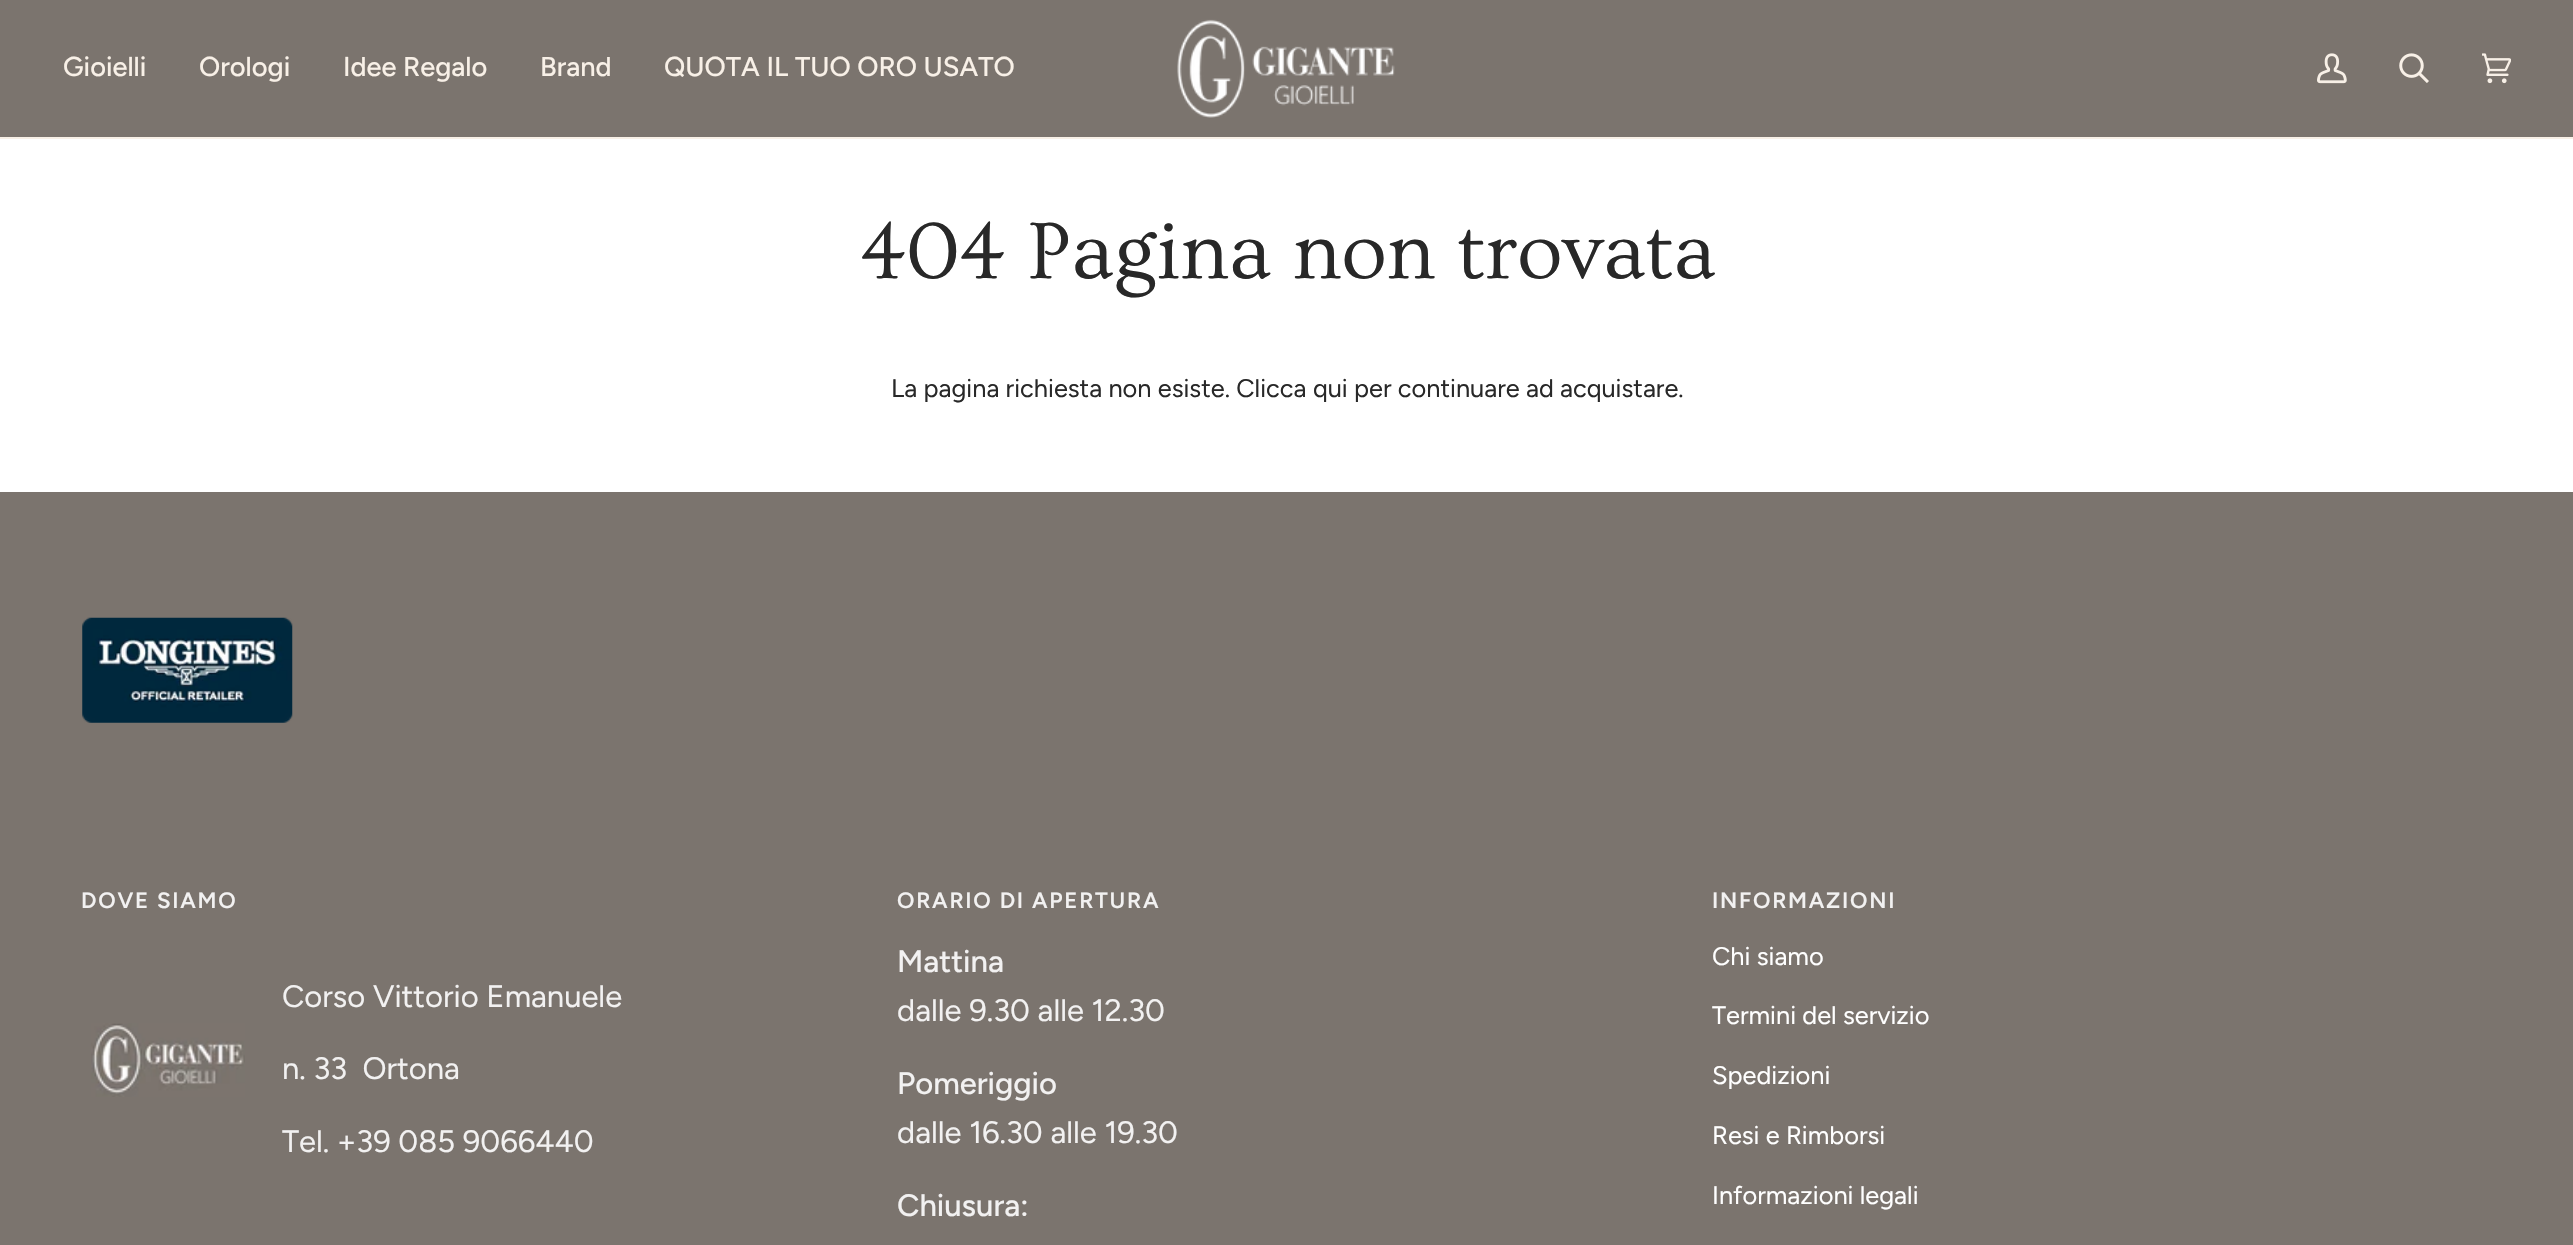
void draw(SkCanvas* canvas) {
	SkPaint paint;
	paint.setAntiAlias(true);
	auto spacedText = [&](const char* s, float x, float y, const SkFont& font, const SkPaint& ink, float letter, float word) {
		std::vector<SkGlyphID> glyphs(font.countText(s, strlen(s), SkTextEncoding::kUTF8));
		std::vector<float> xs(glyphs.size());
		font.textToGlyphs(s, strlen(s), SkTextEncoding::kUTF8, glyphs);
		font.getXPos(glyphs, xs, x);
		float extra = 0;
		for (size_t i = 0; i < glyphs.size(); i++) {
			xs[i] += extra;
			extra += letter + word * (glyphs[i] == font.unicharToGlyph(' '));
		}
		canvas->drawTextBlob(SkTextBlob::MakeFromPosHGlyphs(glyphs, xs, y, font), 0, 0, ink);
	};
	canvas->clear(0xffffffff);
	paint.setColor(0xff7b746e);
	canvas->drawRect(SkRect::MakeXYWH(0, 0, 2573, 137), paint);
	paint.setColor(0xfff8f0e7);
	canvas->drawRect(SkRect::MakeXYWH(0, 137, 2573, 2), paint);
	SkFont f1(fontMgr->matchFamilyStyle("Figtree", SkFontStyle(500, SkFontStyle::kNormal_Width, SkFontStyle::kUpright_Slant)), 27.25);
	f1.setSubpixel(true);
	canvas->drawString("Gioielli", 63, 76, f1, paint);
	canvas->drawString("Orologi", 199, 76, f1, paint);
	canvas->drawString("Idee Regalo", 343, 76, f1, paint);
	canvas->drawString("Brand", 540, 76, f1, paint);
	canvas->drawString("QUOTA IL TUO ORO USATO", 664, 76, f1, paint);
	canvas->drawImageRect(SkImages::DeferredFromEncodedData(SkData::MakeFromFileName("img1.png")), SkRect::MakeXYWH(1177, 19, 218, 99), SkSamplingOptions());
	canvas->drawImageRect(SkImages::DeferredFromEncodedData(SkData::MakeFromFileName("img2.png")), SkRect::MakeXYWH(2317, 53, 30, 31), SkSamplingOptions());
	canvas->drawImageRect(SkImages::DeferredFromEncodedData(SkData::MakeFromFileName("img3.png")), SkRect::MakeXYWH(2399, 53, 30, 30), SkSamplingOptions());
	canvas->drawImageRect(SkImages::DeferredFromEncodedData(SkData::MakeFromFileName("img4.png")), SkRect::MakeXYWH(2482, 53, 29, 31), SkSamplingOptions());
	SkFont f2(fontMgr->matchFamilyStyle("Ovo", SkFontStyle::Normal()), 83.75);
	f2.setSubpixel(true);
	paint.setColor(0xff282828);
	canvas->drawString("404 Pagina non trovata", 860, 278, f2, paint);
	SkFont f3(fontMgr->matchFamilyStyle("Figtree", SkFontStyle::Normal()), 25.4);
	f3.setSubpixel(true);
	canvas->drawString("La pagina richiesta non esiste. Clicca", 891, 397, f3, paint);
	canvas->drawString("qui per continuare ad acquistare.", 1313, 397, f3, paint);
	paint.setColor(0xff7b746e);
	canvas->drawRect(SkRect::MakeXYWH(0, 492, 2573, 753), paint);
	canvas->drawImageRect(SkImages::DeferredFromEncodedData(SkData::MakeFromFileName("img5.png")), SkRect::MakeXYWH(82, 617, 211, 106), SkSamplingOptions());
	SkFont f4(fontMgr->matchFamilyStyle("Figtree", SkFontStyle(600, SkFontStyle::kNormal_Width, SkFontStyle::kUpright_Slant)), 22.25);
	f4.setSubpixel(true);
	paint.setColor(0xfff2f1f1);
	spacedText("DOVE SIAMO", 81, 908, f4, paint, 1.75, 0);
	SkFont f5(fontMgr->matchFamilyStyle("Figtree", SkFontStyle::Normal()), 31);
	f5.setSubpixel(true);
	canvas->drawString("Corso Vittorio Emanuele", 282, 1007, f5, paint);
	canvas->drawImageRect(SkImages::DeferredFromEncodedData(SkData::MakeFromFileName("img6.png")), SkRect::MakeXYWH(91, 1023, 154, 74), SkSamplingOptions());
	canvas->drawString("n. 33  Ortona", 282, 1079, f5, paint);
	canvas->drawString("Tel. +39 085 9066440", 282, 1152, f5, paint);
	spacedText("ORARIO DI APERTURA", 897, 908, f4, paint, 1.75, 0);
	SkFont f6(fontMgr->matchFamilyStyle("Figtree", SkFontStyle(500, SkFontStyle::kNormal_Width, SkFontStyle::kUpright_Slant)), 31);
	f6.setSubpixel(true);
	canvas->drawString("Mattina", 897, 972, f6, paint);
	canvas->drawString("dalle 9.30 alle 12.30", 897, 1021, f5, paint);
	canvas->drawString("Pomeriggio", 897, 1094, f6, paint);
	canvas->drawString("dalle 16.30 alle 19.30", 897, 1143, f5, paint);
	canvas->drawString("Chiusura:", 897, 1216, f6, paint);
	spacedText("INFORMAZIONI", 1712, 908, f4, paint, 1.75, 0);
	paint.setColor(0xffffffff);
	canvas->drawString("Chi siamo", 1712, 965, f3, paint);
	canvas->drawString("Termini del servizio", 1712, 1024, f3, paint);
	canvas->drawString("Spedizioni", 1712, 1084, f3, paint);
	canvas->drawString("Resi e Rimborsi", 1712, 1144, f3, paint);
	canvas->drawString("Informazioni legali", 1712, 1204, f3, paint);
}
